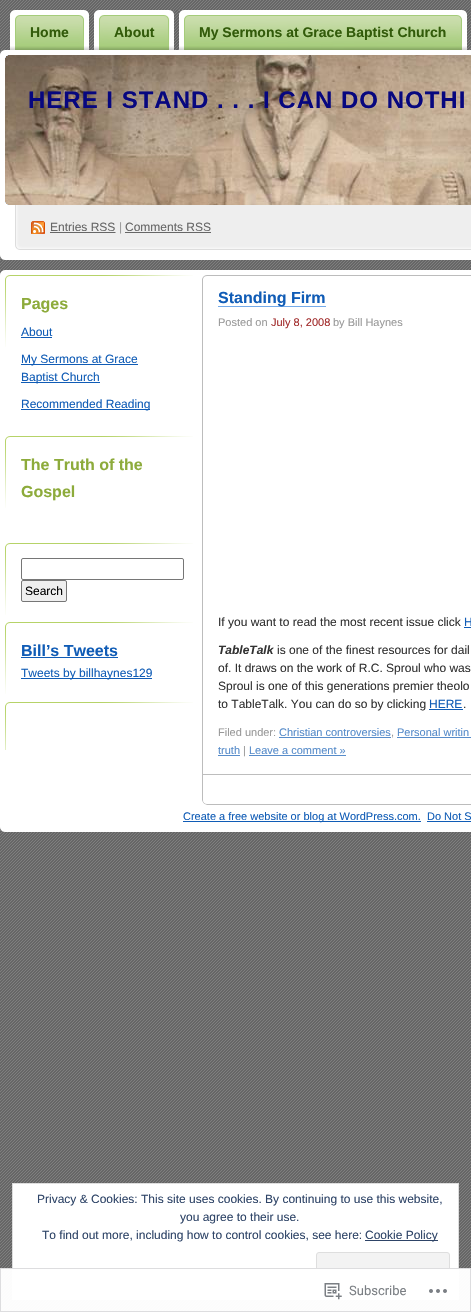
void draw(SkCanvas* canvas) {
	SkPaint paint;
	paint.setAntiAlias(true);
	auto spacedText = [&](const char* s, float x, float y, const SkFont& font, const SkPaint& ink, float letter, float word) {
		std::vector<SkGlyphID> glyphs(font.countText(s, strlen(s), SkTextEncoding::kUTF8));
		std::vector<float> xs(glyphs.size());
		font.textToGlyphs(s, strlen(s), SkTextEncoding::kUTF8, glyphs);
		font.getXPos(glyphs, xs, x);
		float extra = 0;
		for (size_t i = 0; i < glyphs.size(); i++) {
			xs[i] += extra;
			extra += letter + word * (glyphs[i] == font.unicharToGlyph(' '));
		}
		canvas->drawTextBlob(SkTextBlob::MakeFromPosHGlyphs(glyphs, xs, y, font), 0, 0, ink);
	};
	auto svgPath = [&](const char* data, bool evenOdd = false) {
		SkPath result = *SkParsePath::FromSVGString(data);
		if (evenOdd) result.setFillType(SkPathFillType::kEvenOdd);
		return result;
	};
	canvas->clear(0xffffffff);
	canvas->drawImageRect(SkImages::DeferredFromEncodedData(SkData::MakeFromFileName("img1.png")), SkRect::MakeXYWH(0, 0, 471, 1312), SkSamplingOptions());
	canvas->drawImageRect(SkImages::DeferredFromEncodedData(SkData::MakeFromFileName("img2.png")), SkRect::MakeXYWH(20, 10, 69, 40), SkSamplingOptions());
	canvas->drawImageRect(SkImages::DeferredFromEncodedData(SkData::MakeFromFileName("img3.png")), SkRect::MakeXYWH(10, 10, 10, 40), SkSamplingOptions());
	SkFont f1(fontMgr->matchFamilyStyle("Liberation Sans", SkFontStyle::Bold()), 14);
	f1.setSubpixel(true);
	paint.setColor(0xff325b0a);
	canvas->drawString("Home", 30, 37, f1, paint);
	canvas->drawImageRect(SkImages::DeferredFromEncodedData(SkData::MakeFromFileName("img4.png")), SkRect::MakeXYWH(104, 10, 70, 40), SkSamplingOptions());
	canvas->drawImageRect(SkImages::DeferredFromEncodedData(SkData::MakeFromFileName("img3.png")), SkRect::MakeXYWH(94, 10, 10, 40), SkSamplingOptions());
	canvas->drawString("About", 114, 37, f1, paint);
	canvas->drawImageRect(SkImages::DeferredFromEncodedData(SkData::MakeFromFileName("img5.png")), SkRect::MakeXYWH(189, 10, 278, 40), SkSamplingOptions());
	canvas->drawImageRect(SkImages::DeferredFromEncodedData(SkData::MakeFromFileName("img3.png")), SkRect::MakeXYWH(179, 10, 10, 40), SkSamplingOptions());
	canvas->drawString("My Sermons at Grace Baptist Church", 199, 37, f1, paint);
	canvas->drawImageRect(SkImages::DeferredFromEncodedData(SkData::MakeFromFileName("img7.png")), SkRect::MakeXYWH(5, 55, 466, 150), SkSamplingOptions());
	canvas->drawImageRect(SkImages::DeferredFromEncodedData(SkData::MakeFromFileName("img6.png")), SkRect::MakeXYWH(0, 50, 471, 210), SkSamplingOptions());
	SkFont f2(fontMgr->matchFamilyStyle("Liberation Sans", SkFontStyle::Bold()), 24);
	f2.setSubpixel(true);
	paint.setColor(0xff07077f);
	spacedText("HERE I STAND . . . I CAN DO NOTHI", 28, 108, f2, paint, 1, 0);
	canvas->drawImageRect(SkImages::DeferredFromEncodedData(SkData::MakeFromFileName("img8.png")), SkRect::MakeXYWH(31, 221, 14, 13), SkSamplingOptions());
	SkFont f3(fontMgr->matchFamilyStyle("Liberation Sans", SkFontStyle::Normal()), 12);
	f3.setSubpixel(true);
	paint.setColor(0xff666666);
	canvas->drawString("Entries RSS", 50, 231, f3, paint);
	canvas->drawRect(SkRect::MakeXYWH(50, 232, 41, 1), paint);
	paint.setStroke(true);
	paint.setStrokeWidth(1);
	paint.setPathEffect(SkDashPathEffect::Make({{1, 1}}, 0));
	canvas->drawPath(svgPath("M90.5 232.5H115.5"), paint);
	paint.setPathEffect(nullptr);
	paint.setStroke(false);
	canvas->drawRect(SkRect::MakeXYWH(91, 232, 24, 1), paint);
	paint.setColor(0xff999999);
	canvas->drawString("|", 119, 231, f3, paint);
	paint.setColor(0xff666666);
	canvas->drawString("Comments RSS", 125, 231, f3, paint);
	canvas->drawRect(SkRect::MakeXYWH(125, 232, 86, 1), paint);
	paint.setColor(0xffffffff);
	canvas->drawRect(SkRect::MakeXYWH(0, 270, 471, 562), paint);
	canvas->drawImageRect(SkImages::DeferredFromEncodedData(SkData::MakeFromFileName("img9.png")), SkRect::MakeXYWH(0, 827, 5, 5), SkSamplingOptions());
	canvas->drawImageRect(SkImages::DeferredFromEncodedData(SkData::MakeFromFileName("img10.png")), SkRect::MakeXYWH(0, 270, 5, 5), SkSamplingOptions());
	canvas->drawImageRect(SkImages::DeferredFromEncodedData(SkData::MakeFromFileName("img11.png")), SkRect::MakeXYWH(5, 275, 188, 72), SkSamplingOptions());
	SkFont f4(fontMgr->matchFamilyStyle("Liberation Sans", SkFontStyle::Bold()), 16);
	f4.setSubpixel(true);
	paint.setColor(0xff8dab3b);
	canvas->drawString("Pages", 21, 309, f4, paint);
	paint.setColor(0xff105cb6);
	canvas->drawString("About", 21, 336, f3, paint);
	canvas->drawRect(SkRect::MakeXYWH(21, 337, 31, 1), paint);
	canvas->drawRect(SkRect::MakeXYWH(21, 364, 117, 1), paint);
	canvas->drawString("My Sermons at Grace", 21, 363, f3, paint);
	canvas->drawRect(SkRect::MakeXYWH(21, 382, 79, 1), paint);
	canvas->drawString("Baptist Church", 21, 381, f3, paint);
	canvas->drawRect(SkRect::MakeXYWH(21, 409, 129, 1), paint);
	canvas->drawString("Recommended Reading", 21, 408, f3, paint);
	canvas->drawImageRect(SkImages::DeferredFromEncodedData(SkData::MakeFromFileName("img11.png")), SkRect::MakeXYWH(5, 436, 188, 72), SkSamplingOptions());
	paint.setColor(0xff8dab3b);
	canvas->drawString("The Truth of the", 21, 470, f4, paint);
	canvas->drawString("Gospel", 21, 497, f4, paint);
	canvas->drawImageRect(SkImages::DeferredFromEncodedData(SkData::MakeFromFileName("img11.png")), SkRect::MakeXYWH(5, 543, 188, 72), SkSamplingOptions());
	paint.setStroke(true);
	paint.setColor(0xff767676);
	canvas->drawRoundRect(SkRect::MakeXYWH(21.5, 558.5, 162, 21), 1.5, 1.5, paint);
	paint.setStroke(false);
	paint.setColor(0xffefefef);
	canvas->drawRoundRect(SkRect::MakeXYWH(21.5, 580.5, 45, 21), 1.5, 1.5, paint);
	paint.setStroke(true);
	paint.setColor(0xff767676);
	canvas->drawRoundRect(SkRect::MakeXYWH(21.5, 580.5, 45, 21), 1.5, 1.5, paint);
	paint.setStroke(false);
	paint.setColor(0xff000000);
	canvas->drawString("Search", 25, 595, f3, paint);
	canvas->drawImageRect(SkImages::DeferredFromEncodedData(SkData::MakeFromFileName("img11.png")), SkRect::MakeXYWH(5, 622, 188, 72), SkSamplingOptions());
	paint.setColor(0xff105cb6);
	canvas->drawString("Bill’s Tweets", 21, 656, f4, paint);
	canvas->drawRect(SkRect::MakeXYWH(21, 657, 97, 1), paint);
	canvas->drawRect(SkRect::MakeXYWH(21, 678, 131, 1), paint);
	canvas->drawString("Tweets by billhaynes129", 21, 677, f3, paint);
	canvas->drawImageRect(SkImages::DeferredFromEncodedData(SkData::MakeFromFileName("img12.png")), SkRect::MakeXYWH(5, 702, 188, 48), SkSamplingOptions());
	paint.setColor(0xffbcbcbc);
	canvas->drawRect(SkRect::MakeXYWH(202, 275, 1, 530), paint);
	canvas->drawImageRect(SkImages::DeferredFromEncodedData(SkData::MakeFromFileName("img13.png")), SkRect::MakeXYWH(202, 800, 269, 5), SkSamplingOptions());
	canvas->drawImageRect(SkImages::DeferredFromEncodedData(SkData::MakeFromFileName("img14.png")), SkRect::MakeXYWH(202, 275, 269, 4), SkSamplingOptions());
	paint.setColor(0xff75abea);
	canvas->drawRect(SkRect::MakeXYWH(218, 306, 108, 1), paint);
	paint.setColor(0xff105cb6);
	canvas->drawString("Standing Firm", 218, 303, f4, paint);
	SkFont f5(fontMgr->matchFamilyStyle("Liberation Sans", SkFontStyle::Normal()), 11);
	f5.setSubpixel(true);
	paint.setColor(0xff999999);
	canvas->drawString("Posted on", 218, 326, f5, paint);
	paint.setColor(0xffa12a2a);
	canvas->drawString("July 8, 2008", 271, 326, f5, paint);
	paint.setColor(0xff999999);
	canvas->drawString("by Bill Haynes", 333, 326, f5, paint);
	paint.setColor(0xff333333);
	canvas->drawString("If you want to read the most recent issue click", 218, 626, f3, paint);
	paint.setColor(0xff105cb6);
	canvas->drawString("H", 464, 626, f3, paint);
	canvas->drawRect(SkRect::MakeXYWH(464, 627, 7, 1), paint);
	SkFont f6(fontMgr->matchFamilyStyle("Liberation Sans", SkFontStyle::BoldItalic()), 12);
	f6.setSubpixel(true);
	paint.setColor(0xff333333);
	canvas->drawString("TableTalk", 218, 654, f6, paint);
	canvas->drawString("is one of the finest resources for dail", 277, 654, f3, paint);
	canvas->drawString("of. It draws on the work of R.C. Sproul who was", 218, 672, f3, paint);
	canvas->drawString("Sproul is one of this generations premier theolo", 218, 690, f3, paint);
	canvas->drawString("to TableTalk. You can do so by clicking", 218, 708, f3, paint);
	paint.setColor(0xff105cb6);
	canvas->drawString("HERE", 429, 708, f3, paint);
	canvas->drawRect(SkRect::MakeXYWH(429, 709, 34, 1), paint);
	paint.setColor(0xff333333);
	canvas->drawString(".", 463, 708, f3, paint);
	paint.setColor(0xff999999);
	canvas->drawString("Filed under:", 218, 736, f5, paint);
	paint.setColor(0xff578cca);
	canvas->drawString("Christian controversies", 279, 736, f5, paint);
	canvas->drawRect(SkRect::MakeXYWH(279, 737, 112, 1), paint);
	paint.setColor(0xff999999);
	canvas->drawString(",", 391, 736, f5, paint);
	paint.setColor(0xff578cca);
	canvas->drawString("Personal writin", 397, 736, f5, paint);
	canvas->drawRect(SkRect::MakeXYWH(397, 737, 74, 1), paint);
	canvas->drawString("truth", 218, 754, f5, paint);
	canvas->drawRect(SkRect::MakeXYWH(218, 755, 22, 1), paint);
	paint.setColor(0xff999999);
	canvas->drawString("|", 243, 754, f5, paint);
	paint.setColor(0xff578cca);
	canvas->drawString("Leave a comment »", 249, 754, f5, paint);
	canvas->drawRect(SkRect::MakeXYWH(249, 755, 97, 1), paint);
	paint.setColor(0xffbdbdbd);
	canvas->drawRect(SkRect::MakeXYWH(202, 774, 269, 1), paint);
	paint.setColor(0xff105cb6);
	canvas->drawRect(SkRect::MakeXYWH(183, 821, 238, 1), paint);
	canvas->drawString("Create a free website or blog at WordPress.com.", 183, 820, f5, paint);
	canvas->drawString("Do Not S", 427, 820, f5, paint);
	canvas->drawRect(SkRect::MakeXYWH(427, 821, 44, 1), paint);
	paint.setColor(0xffffffff);
	canvas->drawRect(SkRect::MakeXYWH(12.5, 1183.5, 446, 116), paint);
	paint.setStroke(true);
	paint.setColor(0xffdedede);
	canvas->drawRect(SkRect::MakeXYWH(12.5, 1183.5, 446, 116), paint);
	paint.setStroke(false);
	paint.setColor(0xff2e4467);
	canvas->drawString("Privacy & Cookies: This site uses cookies. By continuing to use this website,", 37, 1203, f3, paint);
	canvas->drawString("you agree to their use.", 180, 1221, f3, paint);
	canvas->drawString("To find out more, including how to control cookies, see here:", 42, 1239, f3, paint);
	canvas->drawRect(SkRect::MakeXYWH(365, 1240, 73, 1), paint);
	canvas->drawString("Cookie Policy", 365, 1239, f3, paint);
	paint.setColor(0xfff3f3f3);
	canvas->drawRoundRect(SkRect::MakeXYWH(316.5, 1252.5, 133, 38), 2.5, 2.5, paint);
	paint.setStroke(true);
	paint.setColor(0xffdedede);
	canvas->drawRoundRect(SkRect::MakeXYWH(316.5, 1252.5, 133, 38), 2.5, 2.5, paint);
	paint.setStroke(false);
	paint.setColor(0xfaffffff);
	canvas->drawRect(SkRect::MakeXYWH(0, 1268, 471, 44), paint);
	paint.setStroke(true);
	paint.setColor(0xfadcdcde);
	canvas->drawRect(SkRect::MakeXYWH(0.5, 1268.5, 470, 43), paint);
	canvas->drawImageRect(SkImages::DeferredFromEncodedData(SkData::MakeFromFileName("img15.png")), SkRect::MakeXYWH(324, 1283, 18, 17), SkSamplingOptions());
	SkFont f7(fontMgr->matchFamilyStyle("Roboto", SkFontStyle::Normal()), 13);
	f7.setSubpixel(true);
	paint.setStroke(false);
	paint.setColor(0xff7b7f84);
	canvas->drawString("Subscribe", 349, 1295, f7, paint);
	canvas->drawImageRect(SkImages::DeferredFromEncodedData(SkData::MakeFromFileName("img16.png")), SkRect::MakeXYWH(429, 1289, 18, 4), SkSamplingOptions());
}
